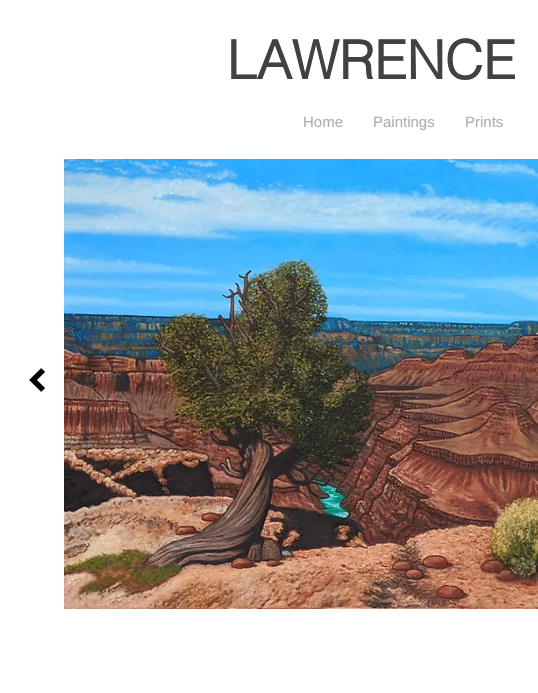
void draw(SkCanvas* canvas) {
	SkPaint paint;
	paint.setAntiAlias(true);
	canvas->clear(0xffffffff);
	SkFont f1(fontMgr->matchFamilyStyle("helvetica", SkFontStyle::Bold()), 53);
	f1.setSubpixel(true);
	paint.setColor(0xff414141);
	canvas->drawString("LAWRENCE", 227, 79, f1, paint);
	SkFont f2(fontMgr->matchFamilyStyle("Liberation Sans", SkFontStyle::Normal()), 15);
	f2.setSubpixel(true);
	paint.setColor(0xffafafaf);
	canvas->drawString("Home", 303, 127, f2, paint);
	canvas->drawString("Paintings", 373, 127, f2, paint);
	canvas->drawString("Prints", 465, 127, f2, paint);
	canvas->drawImageRect(SkImages::DeferredFromEncodedData(SkData::MakeFromFileName("img1.png")), SkRect::MakeXYWH(29, 368, 16, 24), SkSamplingOptions());
	canvas->drawImageRect(SkImages::DeferredFromEncodedData(SkData::MakeFromFileName("img2.png")), SkRect::MakeXYWH(64, 159, 474, 450), SkSamplingOptions());
}
